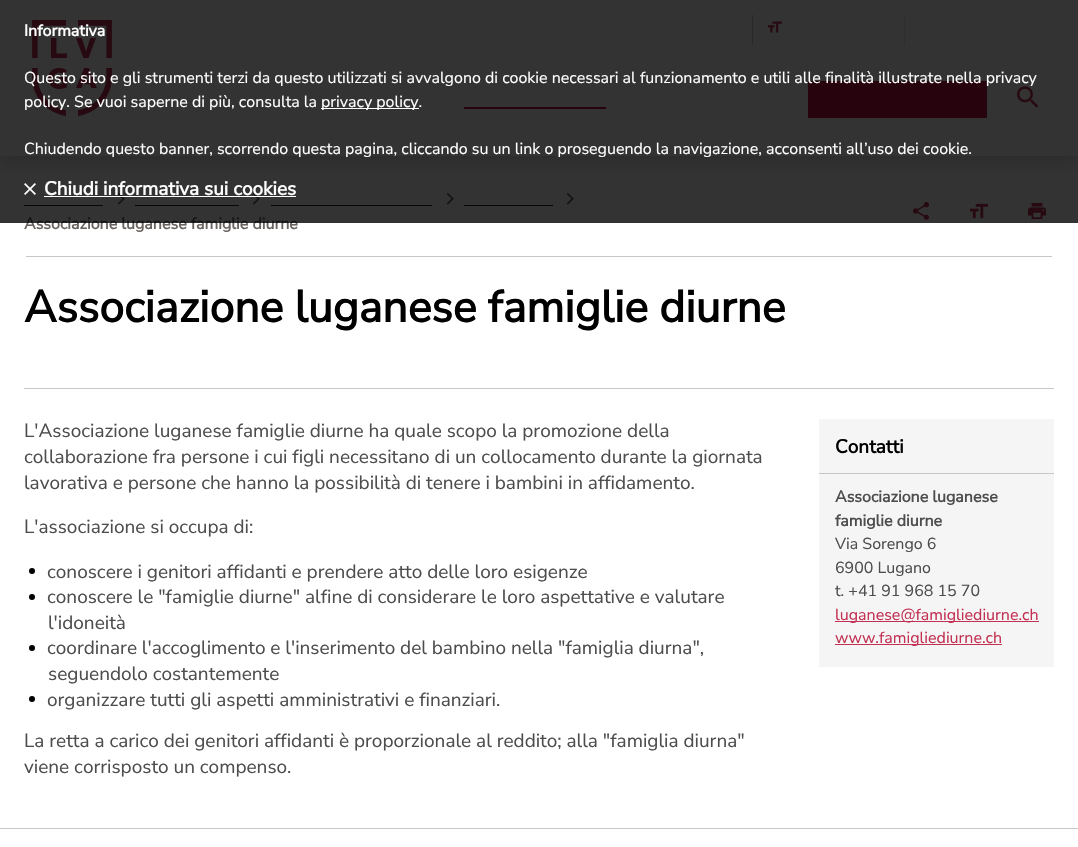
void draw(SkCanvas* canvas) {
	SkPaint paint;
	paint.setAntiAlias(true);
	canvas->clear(0xffffffff);
	canvas->save();
	canvas->clipRect(SkRect::MakeXYWH(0, 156, 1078, 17));
	paint.setColor(0x26000000);
	paint.setMaskFilter(SkMaskFilter::MakeBlur(kNormal_SkBlurStyle, 8));
	canvas->drawRect(SkRect::MakeXYWH(0, 8, 1078, 156), paint);
	paint.setMaskFilter(nullptr);
	canvas->restore();
	canvas->drawImageRect(SkImages::DeferredFromEncodedData(SkData::MakeFromFileName("img2.png")), SkRect::MakeXYWH(32, 20, 80, 96), SkSamplingOptions());
	paint.setColor(0xffcac6c6);
	canvas->drawRect(SkRect::MakeXYWH(752, 15, 1, 30), paint);
	canvas->drawImageRect(SkImages::DeferredFromEncodedData(SkData::MakeFromFileName("img3.png")), SkRect::MakeXYWH(768, 21, 14, 12), SkSamplingOptions());
	paint.setColor(0xffdee2e6);
	canvas->drawRect(SkRect::MakeXYWH(904, 15, 1, 30), paint);
	paint.setColor(0xffbf0d3e);
	canvas->drawRect(SkRect::MakeXYWH(464, 107, 142, 2), paint);
	canvas->drawRect(SkRect::MakeXYWH(808, 81, 179, 37), paint);
	canvas->drawImageRect(SkImages::DeferredFromEncodedData(SkData::MakeFromFileName("img4.png")), SkRect::MakeXYWH(1017, 86, 22, 22), SkSamplingOptions());
	canvas->drawImageRect(SkImages::DeferredFromEncodedData(SkData::MakeFromFileName("img5.png")), SkRect::MakeXYWH(913, 202, 17, 18), SkSamplingOptions());
	canvas->drawImageRect(SkImages::DeferredFromEncodedData(SkData::MakeFromFileName("img6.png")), SkRect::MakeXYWH(970, 203, 18, 16), SkSamplingOptions());
	canvas->drawImageRect(SkImages::DeferredFromEncodedData(SkData::MakeFromFileName("img7.png")), SkRect::MakeXYWH(1028, 202, 18, 18), SkSamplingOptions());
	canvas->drawImageRect(SkImages::DeferredFromEncodedData(SkData::MakeFromFileName("img8.png")), SkRect::MakeXYWH(117, 192, 8, 13), SkSamplingOptions());
	paint.setColor(0xff222222);
	canvas->drawRect(SkRect::MakeXYWH(24, 205, 79, 1), paint);
	canvas->drawImageRect(SkImages::DeferredFromEncodedData(SkData::MakeFromFileName("img8.png")), SkRect::MakeXYWH(252, 192, 8, 13), SkSamplingOptions());
	canvas->drawRect(SkRect::MakeXYWH(135, 205, 104, 1), paint);
	canvas->drawImageRect(SkImages::DeferredFromEncodedData(SkData::MakeFromFileName("img8.png")), SkRect::MakeXYWH(446, 192, 8, 13), SkSamplingOptions());
	canvas->drawRect(SkRect::MakeXYWH(271, 205, 161, 1), paint);
	canvas->drawImageRect(SkImages::DeferredFromEncodedData(SkData::MakeFromFileName("img8.png")), SkRect::MakeXYWH(566, 192, 8, 13), SkSamplingOptions());
	canvas->drawRect(SkRect::MakeXYWH(464, 205, 89, 1), paint);
	SkFont f1(fontMgr->matchFamilyStyle("Nunito Sans", SkFontStyle::Bold()), 16);
	f1.setSubpixel(true);
	paint.setColor(0xff696461);
	canvas->drawString("Associazione luganese famiglie diurne", 24, 229, f1, paint);
	paint.setColor(0xcc000000);
	canvas->drawRect(SkRect::MakeXYWH(0, 0, 1078, 223), paint);
	paint.setColor(0xffffffff);
	canvas->drawString("Informativa", 24, 36, f1, paint);
	SkFont f2(fontMgr->matchFamilyStyle("Nunito Sans", SkFontStyle(200, SkFontStyle::kNormal_Width, SkFontStyle::kUpright_Slant)), 16);
	f2.setSubpixel(true);
	canvas->drawString("Questo sito e gli strumenti terzi da questo utilizzati si avvalgono di cookie necessari al funzionamento e utili alle finalità illustrate nella privacy", 24, 83, f2, paint);
	canvas->drawString("policy. Se vuoi saperne di più, consulta la", 24, 107, f2, paint);
	canvas->drawRect(SkRect::MakeXYWH(321, 108, 98, 1), paint);
	canvas->drawString("privacy policy.", 321, 107, f2, paint);
	canvas->drawString("Chiudendo questo banner, scorrendo questa pagina, cliccando su un link o proseguendo la navigazione, acconsenti all’uso dei cookie.", 24, 154, f2, paint);
	canvas->drawImageRect(SkImages::DeferredFromEncodedData(SkData::MakeFromFileName("img1.png")), SkRect::MakeXYWH(24, 183, 12, 12), SkSamplingOptions());
	SkFont f3(fontMgr->matchFamilyStyle("Nunito Sans", SkFontStyle::Bold()), 19);
	f3.setSubpixel(true);
	canvas->drawString("Chiudi informativa sui cookies", 44, 195, f3, paint);
	canvas->drawRect(SkRect::MakeXYWH(44, 196, 252, 1), paint);
	paint.setColor(0xffcac6c6);
	canvas->drawRect(SkRect::MakeXYWH(26, 256, 1026, 1), paint);
	SkFont f4(fontMgr->matchFamilyStyle("Nunito Sans", SkFontStyle::Bold()), 44.5);
	f4.setSubpixel(true);
	paint.setColor(0xff000000);
	canvas->drawString("Associazione luganese famiglie diurne", 24, 322, f4, paint);
	paint.setColor(0xffcac6c6);
	canvas->drawRect(SkRect::MakeXYWH(24, 388, 1030, 1), paint);
	SkFont f5(fontMgr->matchFamilyStyle("Nunito Sans", SkFontStyle(200, SkFontStyle::kNormal_Width, SkFontStyle::kUpright_Slant)), 19);
	f5.setSubpixel(true);
	paint.setColor(0xff4d4d4d);
	canvas->drawString("L'Associazione luganese famiglie diurne ha quale scopo la promozione della", 24, 437, f5, paint);
	canvas->drawString("collaborazione fra persone i cui figli necessitano di un collocamento durante la giornata", 24, 463, f5, paint);
	canvas->drawString("lavorativa e persone che hanno la possibilità di tenere i bambini in affidamento.", 24, 489, f5, paint);
	canvas->drawString("L'associazione si occupa di:", 24, 533, f5, paint);
	paint.setColor(0xff000000);
	canvas->drawCircle(32, 571, 3, paint);
	paint.setColor(0xff4d4d4d);
	canvas->drawString("conoscere i genitori affidanti e prendere atto delle loro esigenze", 47, 578, f5, paint);
	paint.setColor(0xff000000);
	canvas->drawCircle(32, 597, 3, paint);
	paint.setColor(0xff4d4d4d);
	canvas->drawString("conoscere le \"famiglie diurne\" alfine di considerare le loro aspettative e valutare", 47, 603, f5, paint);
	canvas->drawString("l'idoneità", 48, 629, f5, paint);
	paint.setColor(0xff000000);
	canvas->drawCircle(32, 648, 3, paint);
	paint.setColor(0xff4d4d4d);
	canvas->drawString("coordinare l'accoglimento e l'inserimento del bambino nella \"famiglia diurna\",", 47, 654, f5, paint);
	canvas->drawString("seguendolo costantemente", 48, 680, f5, paint);
	paint.setColor(0xff000000);
	canvas->drawCircle(32, 699, 3, paint);
	paint.setColor(0xff4d4d4d);
	canvas->drawString("organizzare tutti gli aspetti amministrativi e finanziari.", 47, 706, f5, paint);
	canvas->drawString("La retta a carico dei genitori affidanti è proporzionale al reddito; alla \"famiglia diurna\"", 24, 747, f5, paint);
	canvas->drawString("viene corrisposto un compenso.", 24, 773, f5, paint);
	paint.setColor(0xfff6f5f5);
	canvas->drawRect(SkRect::MakeXYWH(819, 419, 235, 248), paint);
	paint.setColor(0xffcac6c6);
	canvas->drawRect(SkRect::MakeXYWH(819, 473, 235, 1), paint);
	paint.setColor(0xff000000);
	canvas->drawString("Contatti", 835, 453, f3, paint);
	paint.setColor(0xff4d4d4d);
	canvas->drawString("Associazione luganese", 835, 502, f1, paint);
	canvas->drawString("famiglie diurne", 835, 526, f1, paint);
	canvas->drawString("Via Sorengo 6", 835, 549, f2, paint);
	canvas->drawString("6900 Lugano", 835, 573, f2, paint);
	canvas->drawString("t. +41 91 968 15 70", 835, 596, f2, paint);
	paint.setColor(0xffc23052);
	canvas->drawRect(SkRect::MakeXYWH(835, 621, 204, 1), paint);
	canvas->drawString("luganese@famigliediurne.ch", 835, 620, f2, paint);
	canvas->drawRect(SkRect::MakeXYWH(835, 644, 167, 1), paint);
	canvas->drawString("www.famigliediurne.ch", 835, 643, f2, paint);
	paint.setColor(0xffcac6c6);
	canvas->drawRect(SkRect::MakeXYWH(0, 828, 1078, 1), paint);
}
